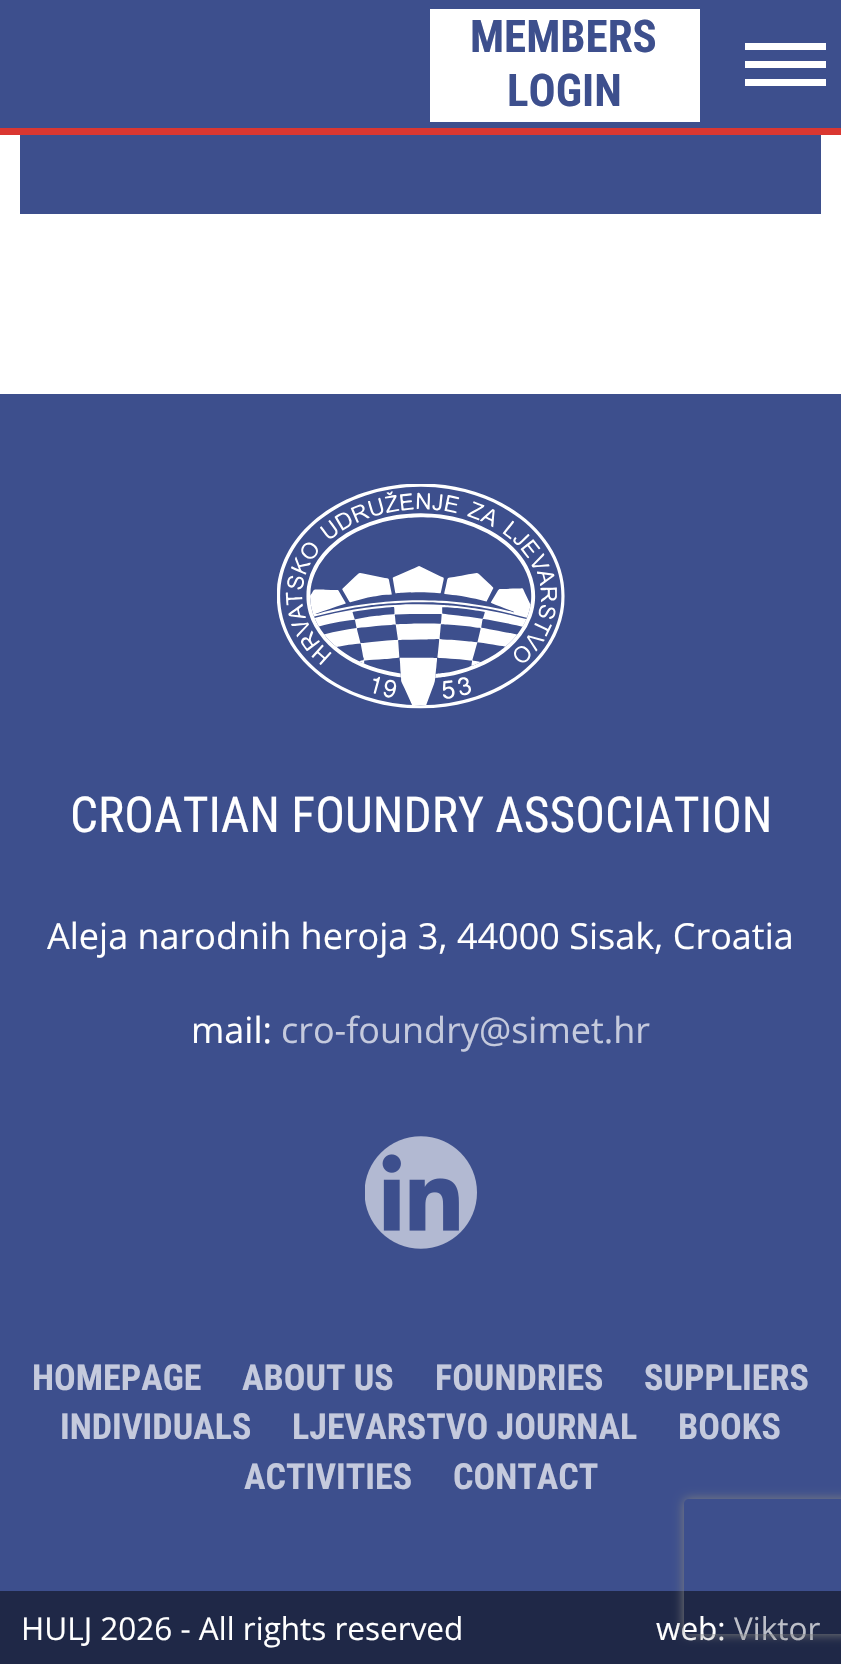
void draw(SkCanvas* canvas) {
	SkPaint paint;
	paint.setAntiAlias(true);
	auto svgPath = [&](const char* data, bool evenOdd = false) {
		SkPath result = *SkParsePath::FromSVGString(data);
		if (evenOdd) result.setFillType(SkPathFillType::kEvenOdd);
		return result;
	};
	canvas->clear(0xffffffff);
	paint.setColor(0xff3d4f8d);
	canvas->drawRect(SkRect::MakeXYWH(0, 0, 841, 128), paint);
	paint.setColor(0xffda3731);
	canvas->drawRect(SkRect::MakeXYWH(0, 128, 841, 7), paint);
	paint.setColor(0xffffffff);
	canvas->drawRect(SkRect::MakeXYWH(430, 9, 270, 113), paint);
	SkFont f1(fontMgr->matchFamilyStyle("Roboto Condensed", SkFontStyle::Bold()), 45);
	f1.setSubpixel(true);
	paint.setColor(0xff3d4f8d);
	canvas->drawString("MEMBERS", 470, 52, f1, paint);
	canvas->drawString("LOGIN", 507, 106, f1, paint);
	paint.setColor(0xffffffff);
	canvas->drawRect(SkRect::MakeXYWH(745, 43, 81, 7), paint);
	canvas->drawRect(SkRect::MakeXYWH(745, 61, 81, 7), paint);
	canvas->drawRect(SkRect::MakeXYWH(745, 79, 81, 7), paint);
	paint.setColor(0xff3d4f8d);
	canvas->drawRect(SkRect::MakeXYWH(20, 135, 801, 79), paint);
	canvas->drawRect(SkRect::MakeXYWH(0, 394, 841, 1197), paint);
	canvas->drawImageRect(SkImages::DeferredFromEncodedData(SkData::MakeFromFileName("img1.png")), SkRect::MakeXYWH(277, 484, 288, 225), SkSamplingOptions());
	SkFont f2(fontMgr->matchFamilyStyle("Roboto Condensed", SkFontStyle::Normal()), 49.5);
	f2.setSubpixel(true);
	paint.setColor(0xffffffff);
	canvas->drawString("CROATIAN FOUNDRY ASSOCIATION", 70, 832, f2, paint);
	SkFont f3(fontMgr->matchFamilyStyle("Open Sans", SkFontStyle::Normal()), 36);
	f3.setSubpixel(true);
	canvas->drawString("Aleja narodnih heroja 3, 44000 Sisak, Croatia", 47, 949, f3, paint);
	canvas->drawString("mail:", 191, 1043, f3, paint);
	paint.setColor(0xffc5cadd);
	canvas->drawString("cro-foundry@simet.hr", 281, 1043, f3, paint);
	canvas->drawImageRect(SkImages::DeferredFromEncodedData(SkData::MakeFromFileName("img2.png")), SkRect::MakeXYWH(365, 1136, 112, 113), SkSamplingOptions());
	SkFont f4(fontMgr->matchFamilyStyle("Roboto Condensed", SkFontStyle::Bold()), 36);
	f4.setSubpixel(true);
	canvas->drawString("HOMEPAGE", 32, 1390, f4, paint);
	canvas->drawString("ABOUT US", 242, 1390, f4, paint);
	canvas->drawString("FOUNDRIES", 435, 1390, f4, paint);
	canvas->drawString("SUPPLIERS", 644, 1390, f4, paint);
	canvas->drawString("INDIVIDUALS", 60, 1439, f4, paint);
	canvas->drawString("LJEVARSTVO JOURNAL", 292, 1439, f4, paint);
	canvas->drawString("BOOKS", 678, 1439, f4, paint);
	canvas->drawString("ACTIVITIES", 244, 1489, f4, paint);
	canvas->drawString("CONTACT", 453, 1489, f4, paint);
	paint.setColor(0xff1f2847);
	canvas->drawRect(SkRect::MakeXYWH(0, 1591, 841, 73), paint);
	SkFont f5(fontMgr->matchFamilyStyle("Open Sans", SkFontStyle::Normal()), 31.5);
	f5.setSubpixel(true);
	paint.setColor(0xffffffff);
	canvas->drawString("HULJ 2026 - All rights reserved", 21, 1640, f5, paint);
	canvas->drawString("web:", 656, 1640, f5, paint);
	paint.setColor(0xffbcbfc8);
	canvas->drawString("Viktor", 734, 1640, f5, paint);
	canvas->save();
	canvas->clipPath(svgPath("M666 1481H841V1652H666ZM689 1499H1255C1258 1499 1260 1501 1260 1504V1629C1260 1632 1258 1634 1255 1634H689C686 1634 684 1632 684 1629V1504C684 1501 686 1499 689 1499Z", true), true);
	paint.setColor(0xff808080);
	paint.setMaskFilter(SkMaskFilter::MakeBlur(kNormal_SkBlurStyle, 5.5));
	canvas->drawRoundRect(SkRect::MakeXYWH(684, 1499, 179, 135), 5, 5, paint);
	paint.setMaskFilter(nullptr);
	canvas->restore();
}
